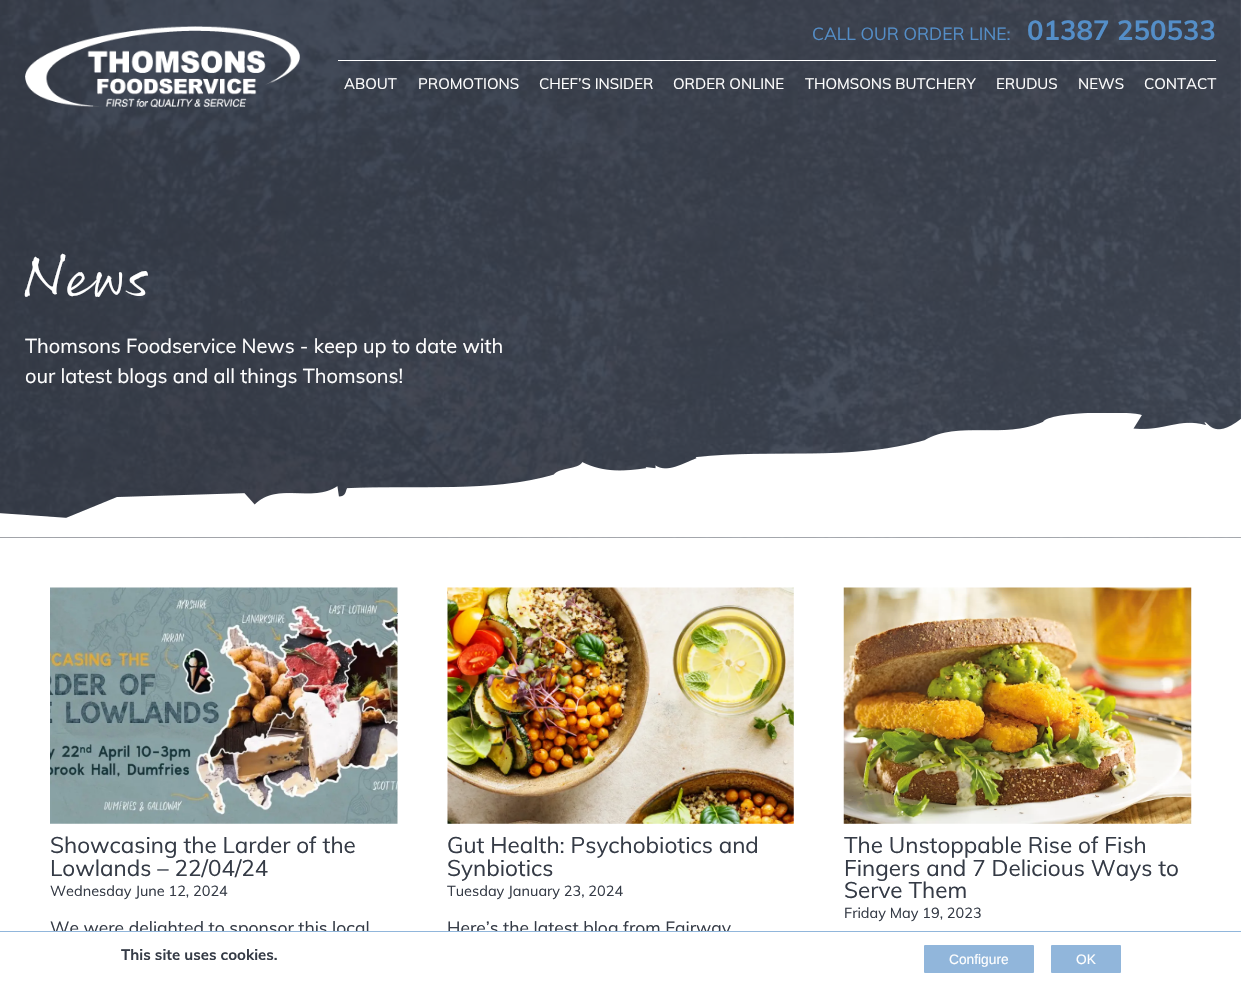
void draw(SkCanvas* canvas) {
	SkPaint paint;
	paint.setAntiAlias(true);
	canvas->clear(0xffffffff);
	canvas->drawImageRect(SkImages::DeferredFromEncodedData(SkData::MakeFromFileName("img2.png")), SkRect::MakeXYWH(0, 0, 1241, 538), SkSamplingOptions());
	canvas->drawImageRect(SkImages::DeferredFromEncodedData(SkData::MakeFromFileName("img1.png")), SkRect::MakeXYWH(25, 26, 275, 82), SkSamplingOptions());
	SkFont f1(fontMgr->matchFamilyStyle("Muli", SkFontStyle::Normal()), 17.5);
	f1.setSubpixel(true);
	paint.setColor(0xff548ec8);
	canvas->drawString("CALL OUR ORDER LINE:", 812, 40, f1, paint);
	SkFont f2(fontMgr->matchFamilyStyle("Muli", SkFontStyle::Bold()), 27.5);
	f2.setSubpixel(true);
	canvas->drawString("01387 250533", 1027, 40, f2, paint);
	paint.setColor(0xffffffff);
	canvas->drawRect(SkRect::MakeXYWH(338, 60, 878, 1), paint);
	SkFont f3(fontMgr->matchFamilyStyle("Muli", SkFontStyle::Normal()), 15);
	f3.setSubpixel(true);
	canvas->drawString("ABOUT", 344, 89, f3, paint);
	canvas->drawString("PROMOTIONS", 418, 89, f3, paint);
	canvas->drawString("CHEF’S INSIDER", 539, 89, f3, paint);
	canvas->drawString("ORDER ONLINE", 673, 89, f3, paint);
	canvas->drawString("THOMSONS BUTCHERY", 805, 89, f3, paint);
	canvas->drawString("ERUDUS", 996, 89, f3, paint);
	canvas->drawString("NEWS", 1078, 89, f3, paint);
	canvas->drawString("CONTACT", 1144, 89, f3, paint);
	SkFont f4(fontMgr->matchFamilyStyle("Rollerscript", SkFontStyle::Normal()), 62);
	f4.setSubpixel(true);
	canvas->drawString("News", 25, 295, f4, paint);
	SkFont f5(fontMgr->matchFamilyStyle("Muli", SkFontStyle::Normal()), 20);
	f5.setSubpixel(true);
	canvas->drawString("Thomsons Foodservice News - keep up to date with", 25, 353, f5, paint);
	canvas->drawString("our latest blogs and all things Thomsons!", 25, 383, f5, paint);
	canvas->drawImageRect(SkImages::DeferredFromEncodedData(SkData::MakeFromFileName("img3.png")), SkRect::MakeXYWH(0, 413, 1241, 125), SkSamplingOptions());
	paint.setColor(0xff353b46);
	canvas->drawRect(SkRect::MakeXYWH(397, 613, 1, 1), paint);
	canvas->drawImageRect(SkImages::DeferredFromEncodedData(SkData::MakeFromFileName("img4.png")), SkRect::MakeXYWH(50, 587, 348, 237), SkSamplingOptions());
	SkFont f6(fontMgr->matchFamilyStyle("Muli", SkFontStyle::Normal()), 22.5);
	f6.setSubpixel(true);
	canvas->drawString("Showcasing the Larder of the", 50, 853, f6, paint);
	canvas->drawString("Lowlands – 22/04/24", 50, 876, f6, paint);
	SkFont f7(fontMgr->matchFamilyStyle("Muli", SkFontStyle::Normal()), 14.5);
	f7.setSubpixel(true);
	canvas->drawString("Wednesday June 12, 2024", 50, 896, f7, paint);
	canvas->drawString("We were delighted to sponsor this local", 50, 934, f1, paint);
	canvas->drawImageRect(SkImages::DeferredFromEncodedData(SkData::MakeFromFileName("img5.png")), SkRect::MakeXYWH(447, 587, 347, 237), SkSamplingOptions());
	canvas->drawString("Gut Health: Psychobiotics and", 447, 853, f6, paint);
	canvas->drawString("Synbiotics", 447, 876, f6, paint);
	canvas->drawString("Tuesday January 23, 2024", 447, 896, f7, paint);
	canvas->drawString("Here’s the latest blog from Fairway", 447, 934, f1, paint);
	canvas->drawImageRect(SkImages::DeferredFromEncodedData(SkData::MakeFromFileName("img6.png")), SkRect::MakeXYWH(843, 587, 349, 237), SkSamplingOptions());
	canvas->drawString("The Unstoppable Rise of Fish", 844, 853, f6, paint);
	canvas->drawString("Fingers and 7 Delicious Ways to", 844, 876, f6, paint);
	canvas->drawString("Serve Them", 844, 898, f6, paint);
	canvas->drawString("Friday May 19, 2023", 844, 918, f7, paint);
	paint.setColor(0xffffffff);
	canvas->drawRect(SkRect::MakeXYWH(54, 932, 674, 6), paint);
	paint.setColor(0xff91b6db);
	canvas->drawRect(SkRect::MakeXYWH(0, 931, 1241, 1), paint);
	SkFont f8(fontMgr->matchFamilyStyle("Muli", SkFontStyle::Bold()), 15);
	f8.setSubpixel(true);
	paint.setColor(0xff353b46);
	canvas->drawString("This site uses cookies.", 121, 960, f8, paint);
	paint.setColor(0xff91b6db);
	canvas->drawRoundRect(SkRect::MakeXYWH(924, 945, 110, 28), 1, 1, paint);
	SkFont f9(fontMgr->matchFamilyStyle("Liberation Sans", SkFontStyle::Normal()), 13.75);
	f9.setSubpixel(true);
	paint.setColor(0xffffffff);
	canvas->drawString("Configure", 949, 964, f9, paint);
	paint.setColor(0xff91b6db);
	canvas->drawRoundRect(SkRect::MakeXYWH(1051, 945, 70, 28), 1, 1, paint);
	paint.setColor(0xffffffff);
	canvas->drawString("OK", 1076, 964, f9, paint);
}
